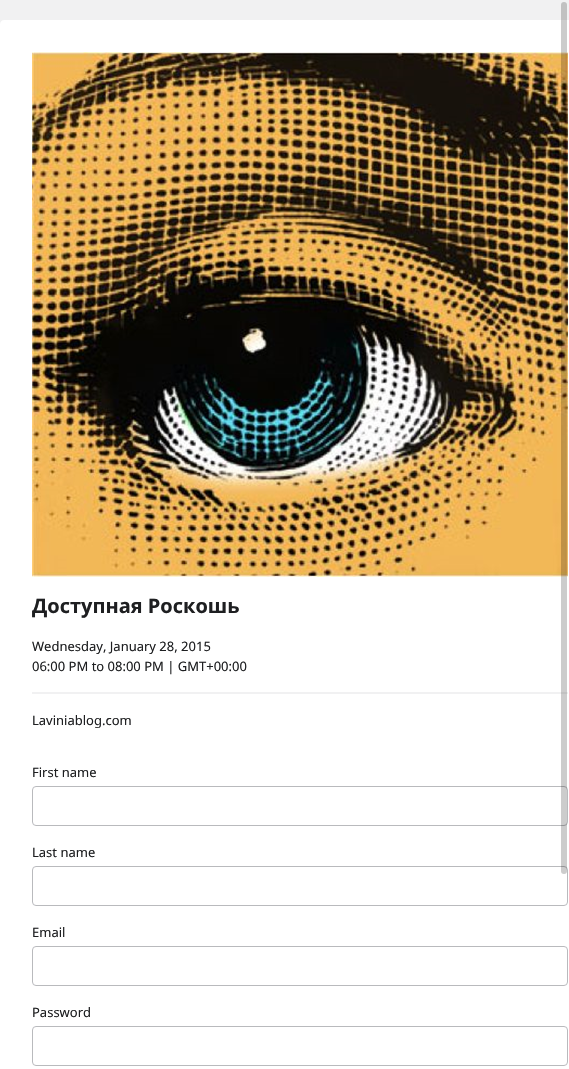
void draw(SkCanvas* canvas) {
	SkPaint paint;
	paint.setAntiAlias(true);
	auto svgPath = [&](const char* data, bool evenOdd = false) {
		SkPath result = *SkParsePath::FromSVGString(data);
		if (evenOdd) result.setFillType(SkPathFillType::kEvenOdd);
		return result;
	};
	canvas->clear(0xfff1f1f2);
	paint.setColor(0xffffffff);
	canvas->drawPath(svgPath("M4 20H569V1069H0V24C0 22 2 20 4 20Z"), paint);
	canvas->drawImageRect(SkImages::DeferredFromEncodedData(SkData::MakeFromFileName("img1.png")), SkRect::MakeXYWH(32, 52, 536, 525), SkSamplingOptions());
	SkFont f1(fontMgr->matchFamilyStyle("Noto Sans", SkFontStyle::Bold()), 20);
	f1.setSubpixel(true);
	paint.setColor(0xff1e1f21);
	canvas->drawString("Доступная Роскошь", 32, 613, f1, paint);
	SkFont f2(fontMgr->matchFamilyStyle("Noto Sans", SkFontStyle::Normal()), 13);
	f2.setSubpixel(true);
	canvas->drawString("Wednesday, January 28, 2015", 32, 651, f2, paint);
	canvas->drawString("06:00 PM to 08:00 PM | GMT+00:00", 32, 671, f2, paint);
	paint.setColor(0xfff1f1f2);
	canvas->drawRect(SkRect::MakeXYWH(32, 692, 536, 2), paint);
	paint.setColor(0xff1e1f21);
	canvas->drawString("Laviniablog.com", 32, 725, f2, paint);
	canvas->drawString("First name", 32, 777, f2, paint);
	paint.setStroke(true);
	paint.setStrokeWidth(1);
	paint.setColor(0xffb9babd);
	canvas->drawRoundRect(SkRect::MakeXYWH(32.5, 786.5, 535, 39), 3.5, 3.5, paint);
	paint.setStroke(false);
	paint.setColor(0xff1e1f21);
	canvas->drawString("Last name", 32, 857, f2, paint);
	paint.setStroke(true);
	paint.setColor(0xffb9babd);
	canvas->drawRoundRect(SkRect::MakeXYWH(32.5, 866.5, 535, 39), 3.5, 3.5, paint);
	paint.setStroke(false);
	paint.setColor(0xff1e1f21);
	canvas->drawString("Email", 32, 937, f2, paint);
	paint.setStroke(true);
	paint.setColor(0xffb9babd);
	canvas->drawRoundRect(SkRect::MakeXYWH(32.5, 946.5, 535, 39), 3.5, 3.5, paint);
	paint.setStroke(false);
	paint.setColor(0xff1e1f21);
	canvas->drawString("Password", 32, 1017, f2, paint);
	paint.setStroke(true);
	paint.setColor(0xffb9babd);
	canvas->drawRoundRect(SkRect::MakeXYWH(32.5, 1026.5, 535, 39), 3.5, 3.5, paint);
	paint.setStroke(false);
	paint.setColor(0x33000000);
	canvas->drawRoundRect(SkRect::MakeXYWH(561, 2, 6, 872), 3, 3, paint);
}
